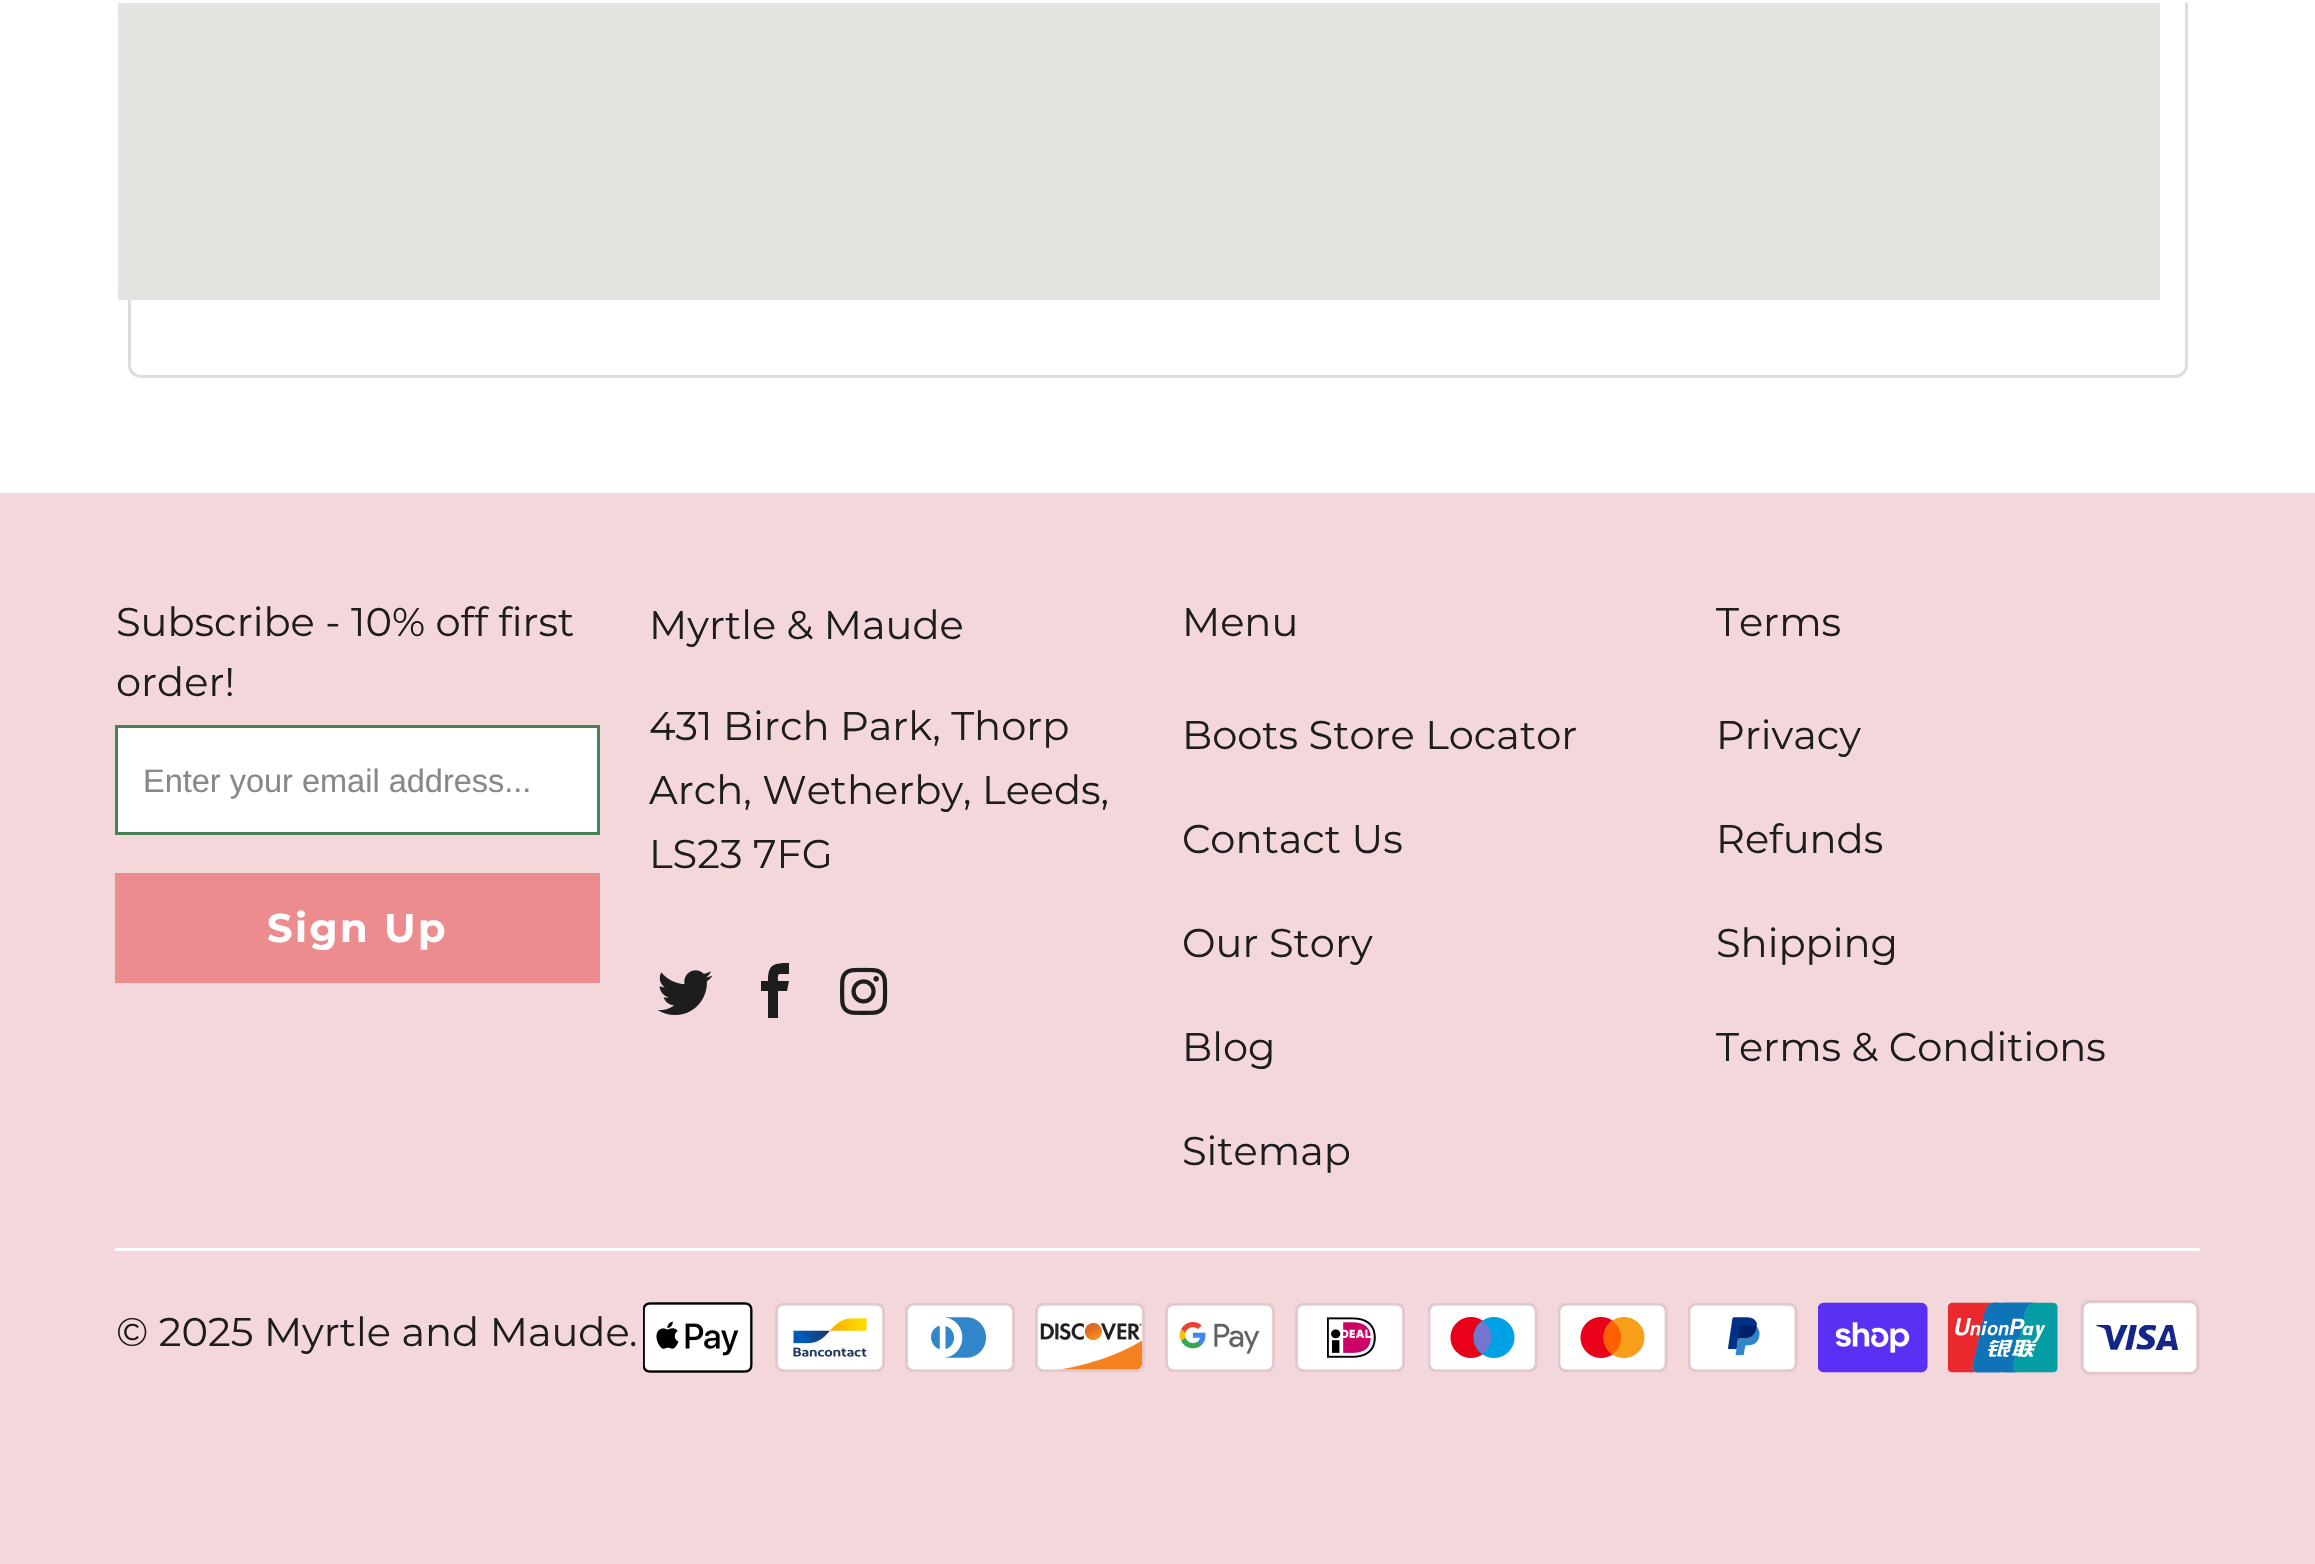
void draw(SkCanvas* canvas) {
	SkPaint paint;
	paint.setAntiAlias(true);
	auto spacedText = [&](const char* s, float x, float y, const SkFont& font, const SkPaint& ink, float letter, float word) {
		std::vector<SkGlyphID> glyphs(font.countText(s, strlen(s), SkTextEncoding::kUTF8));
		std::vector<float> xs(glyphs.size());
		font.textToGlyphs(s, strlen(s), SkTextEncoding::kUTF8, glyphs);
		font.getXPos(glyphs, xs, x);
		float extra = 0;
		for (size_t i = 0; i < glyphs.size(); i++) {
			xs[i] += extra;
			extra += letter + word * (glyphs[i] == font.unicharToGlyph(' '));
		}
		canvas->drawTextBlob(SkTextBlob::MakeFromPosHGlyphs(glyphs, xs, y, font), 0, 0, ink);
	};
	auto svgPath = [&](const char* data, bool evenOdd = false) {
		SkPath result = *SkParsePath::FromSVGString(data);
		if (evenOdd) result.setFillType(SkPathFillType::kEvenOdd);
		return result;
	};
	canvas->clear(0xffffffff);
	paint.setStroke(true);
	paint.setStrokeWidth(3);
	paint.setColor(0xffdddddd);
	canvas->drawRoundRect(SkRect::MakeXYWH(129.5, -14.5, 2057, 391), 11.5, 11.5, paint);
	paint.setStroke(false);
	paint.setColor(0xffe5e3df);
	canvas->drawRect(SkRect::MakeXYWH(118, 3, 2042, 297), paint);
	paint.setColor(0xffffffff);
	canvas->drawRect(SkRect::MakeXYWH(128, 0, 2060, 3), paint);
	paint.setColor(0xfff4d7db);
	canvas->drawRect(SkRect::MakeXYWH(0, 493, 2315, 1071), paint);
	SkFont f1(fontMgr->matchFamilyStyle("Montserrat", SkFontStyle::Normal()), 40);
	f1.setSubpixel(true);
	paint.setColor(0xff1d1d1d);
	canvas->drawString("Subscribe - 10% off first", 116, 636, f1, paint);
	canvas->drawString("order!", 116, 696, f1, paint);
	paint.setColor(0xffffffff);
	canvas->drawRect(SkRect::MakeXYWH(116.5, 726.5, 482, 107), paint);
	paint.setStroke(true);
	paint.setColor(0xff468256);
	canvas->drawRect(SkRect::MakeXYWH(116.5, 726.5, 482, 107), paint);
	SkFont f2(fontMgr->matchFamilyStyle("Liberation Sans", SkFontStyle::Normal()), 32.5);
	f2.setSubpixel(true);
	paint.setStroke(false);
	paint.setColor(0xff888888);
	canvas->drawString("Enter your email address...", 143, 792, f2, paint);
	paint.setColor(0xffed8c8e);
	canvas->drawRect(SkRect::MakeXYWH(115, 873, 485, 110), paint);
	SkFont f3(fontMgr->matchFamilyStyle("Montserrat", SkFontStyle::Bold()), 40);
	f3.setSubpixel(true);
	paint.setColor(0xffffffff);
	spacedText("Sign Up", 267, 942, f3, paint, 2.5, 0);
	paint.setColor(0xff1d1d1d);
	canvas->drawString("Myrtle & Maude", 649, 639, f1, paint);
	canvas->drawString("431 Birch Park, Thorp", 649, 740, f1, paint);
	canvas->drawString("Arch, Wetherby, Leeds,", 649, 804, f1, paint);
	canvas->drawString("LS23 7FG", 649, 868, f1, paint);
	canvas->drawImageRect(SkImages::DeferredFromEncodedData(SkData::MakeFromFileName("img1.png")), SkRect::MakeXYWH(657, 970, 56, 45), SkSamplingOptions());
	canvas->drawPath(svgPath("M780 974H789V963C774 963 768 964 768 981H761V991H768V1018H778V991H787L789 981H778C778 979 777 974 780 974Z"), paint);
	canvas->drawImageRect(SkImages::DeferredFromEncodedData(SkData::MakeFromFileName("img2.png")), SkRect::MakeXYWH(840, 967, 48, 48), SkSamplingOptions());
	canvas->drawString("Menu", 1182, 636, f1, paint);
	canvas->drawString("Boots Store Locator", 1182, 749, f1, paint);
	canvas->drawString("Contact Us", 1182, 853, f1, paint);
	canvas->drawString("Our Story", 1182, 957, f1, paint);
	canvas->drawString("Blog", 1182, 1061, f1, paint);
	canvas->drawString("Sitemap", 1182, 1165, f1, paint);
	canvas->drawString("Terms", 1716, 636, f1, paint);
	canvas->drawString("Privacy", 1716, 749, f1, paint);
	canvas->drawString("Refunds", 1716, 853, f1, paint);
	canvas->drawString("Shipping", 1716, 957, f1, paint);
	canvas->drawString("Terms & Conditions", 1716, 1061, f1, paint);
	paint.setColor(0xffffffff);
	canvas->drawRect(SkRect::MakeXYWH(115, 1248, 2085, 3), paint);
	paint.setColor(0xff1d1d1d);
	canvas->drawString("© 2025 Myrtle and Maude", 116, 1346, f1, paint);
	canvas->drawString(".", 629, 1346, f1, paint);
	canvas->drawImageRect(SkImages::DeferredFromEncodedData(SkData::MakeFromFileName("img3.png")), SkRect::MakeXYWH(643, 1302, 110, 71), SkSamplingOptions());
	canvas->drawImageRect(SkImages::DeferredFromEncodedData(SkData::MakeFromFileName("img4.png")), SkRect::MakeXYWH(775, 1303, 110, 69), SkSamplingOptions());
	canvas->drawImageRect(SkImages::DeferredFromEncodedData(SkData::MakeFromFileName("img5.png")), SkRect::MakeXYWH(905, 1303, 110, 69), SkSamplingOptions());
	canvas->drawImageRect(SkImages::DeferredFromEncodedData(SkData::MakeFromFileName("img6.png")), SkRect::MakeXYWH(1035, 1303, 110, 69), SkSamplingOptions());
	canvas->drawImageRect(SkImages::DeferredFromEncodedData(SkData::MakeFromFileName("img7.png")), SkRect::MakeXYWH(1165, 1303, 110, 69), SkSamplingOptions());
	canvas->drawImageRect(SkImages::DeferredFromEncodedData(SkData::MakeFromFileName("img8.png")), SkRect::MakeXYWH(1295, 1303, 110, 69), SkSamplingOptions());
	canvas->drawImageRect(SkImages::DeferredFromEncodedData(SkData::MakeFromFileName("img9.png")), SkRect::MakeXYWH(1428, 1303, 110, 69), SkSamplingOptions());
	canvas->drawImageRect(SkImages::DeferredFromEncodedData(SkData::MakeFromFileName("img10.png")), SkRect::MakeXYWH(1558, 1303, 110, 69), SkSamplingOptions());
	canvas->drawImageRect(SkImages::DeferredFromEncodedData(SkData::MakeFromFileName("img11.png")), SkRect::MakeXYWH(1688, 1303, 110, 69), SkSamplingOptions());
	canvas->drawImageRect(SkImages::DeferredFromEncodedData(SkData::MakeFromFileName("img12.png")), SkRect::MakeXYWH(1818, 1302, 110, 71), SkSamplingOptions());
	canvas->drawImageRect(SkImages::DeferredFromEncodedData(SkData::MakeFromFileName("img13.png")), SkRect::MakeXYWH(1948, 1302, 110, 71), SkSamplingOptions());
	canvas->drawImageRect(SkImages::DeferredFromEncodedData(SkData::MakeFromFileName("img14.png")), SkRect::MakeXYWH(2080, 1300, 120, 75), SkSamplingOptions());
}
